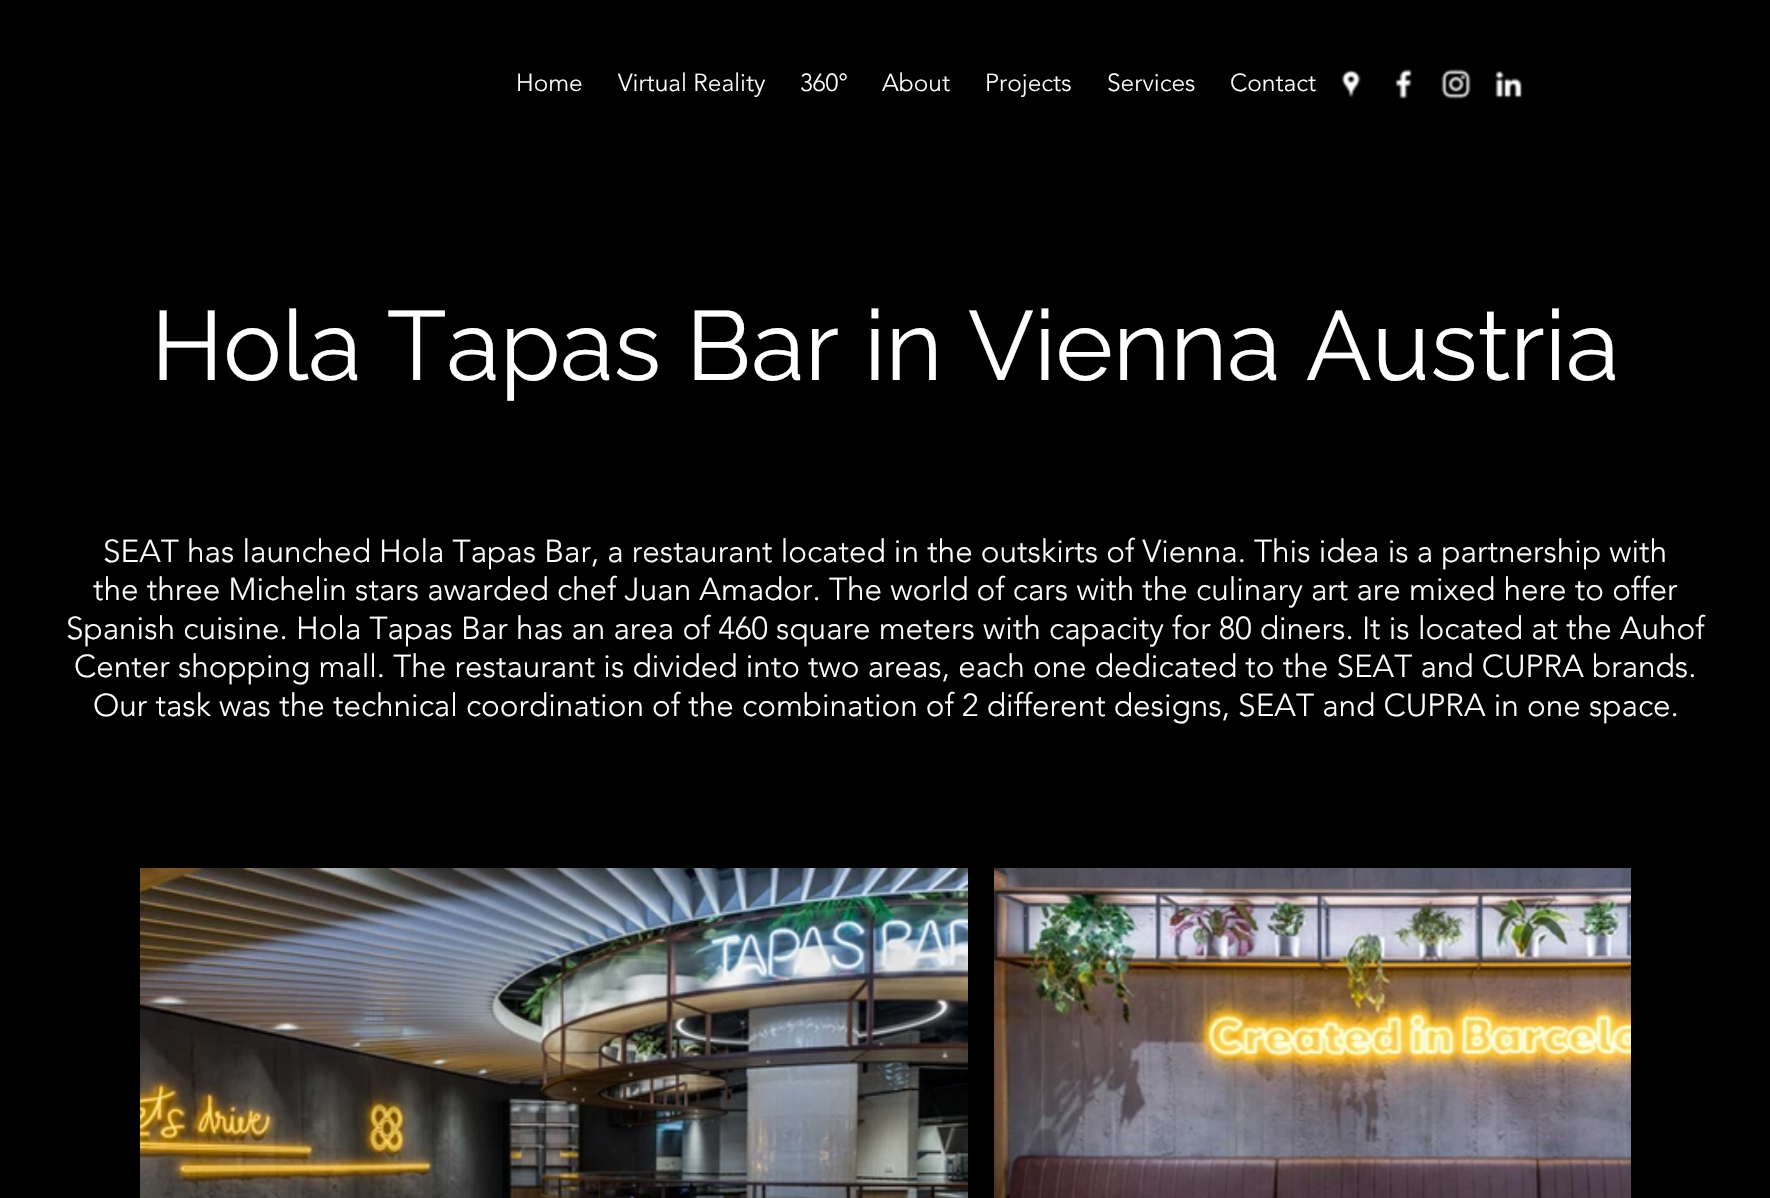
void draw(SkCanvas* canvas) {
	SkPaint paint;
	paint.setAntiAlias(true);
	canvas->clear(0xff000000);
	SkFont f1(fontMgr->matchFamilyStyle("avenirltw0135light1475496", SkFontStyle(300, SkFontStyle::kNormal_Width, SkFontStyle::kUpright_Slant)), 24.5);
	f1.setSubpixel(true);
	paint.setColor(0xffffffff);
	canvas->drawString("Home", 516, 91, f1, paint);
	canvas->drawString("Virtual Reality", 618, 91, f1, paint);
	canvas->drawString("360°", 800, 91, f1, paint);
	canvas->drawString("About", 882, 91, f1, paint);
	canvas->drawString("Projects", 985, 91, f1, paint);
	canvas->drawString("Services", 1107, 91, f1, paint);
	canvas->drawString("Contact", 1230, 91, f1, paint);
	canvas->drawImageRect(SkImages::DeferredFromEncodedData(SkData::MakeFromFileName("img1.png")), SkRect::MakeXYWH(1341, 69, 20, 29), SkSamplingOptions());
	canvas->drawImageRect(SkImages::DeferredFromEncodedData(SkData::MakeFromFileName("img2.png")), SkRect::MakeXYWH(1395, 69, 17, 30), SkSamplingOptions());
	canvas->drawImageRect(SkImages::DeferredFromEncodedData(SkData::MakeFromFileName("img3.png")), SkRect::MakeXYWH(1441, 69, 30, 30), SkSamplingOptions());
	canvas->drawImageRect(SkImages::DeferredFromEncodedData(SkData::MakeFromFileName("img4.png")), SkRect::MakeXYWH(1495, 71, 28, 27), SkSamplingOptions());
	SkFont f2(fontMgr->matchFamilyStyle("Raleway", SkFontStyle::Normal()), 98);
	f2.setSubpixel(true);
	canvas->drawString("Hola Tapas Bar in Vienna Austria", 151, 380, f2, paint);
	SkFont f3(fontMgr->matchFamilyStyle("avenirltw0135light1475496", SkFontStyle(300, SkFontStyle::kNormal_Width, SkFontStyle::kUpright_Slant)), 31.5);
	f3.setSubpixel(true);
	canvas->drawString("SEAT has launched Hola Tapas Bar, a restaurant located in the outskirts of Vienna. This idea is a partnership with", 103, 562, f3, paint);
	canvas->drawString("the three Michelin stars awarded chef Juan Amador. The world of cars with the culinary art are mixed here to offer", 93, 600, f3, paint);
	canvas->drawString("Spanish cuisine. Hola Tapas Bar has an area of 460 square meters with capacity for 80 diners. It is located at the Auhof", 66, 639, f3, paint);
	canvas->drawString("Center shopping mall. The restaurant is divided into two areas, each one dedicated to the SEAT and CUPRA brands.", 74, 677, f3, paint);
	canvas->drawString("Our task was the technical coordination of the combination of 2 different designs, SEAT and CUPRA in one space.", 93, 716, f3, paint);
	canvas->drawImageRect(SkImages::DeferredFromEncodedData(SkData::MakeFromFileName("img5.png")), SkRect::MakeXYWH(140, 868, 828, 330), SkSamplingOptions());
	canvas->drawImageRect(SkImages::DeferredFromEncodedData(SkData::MakeFromFileName("img6.png")), SkRect::MakeXYWH(994, 868, 637, 330), SkSamplingOptions());
}
